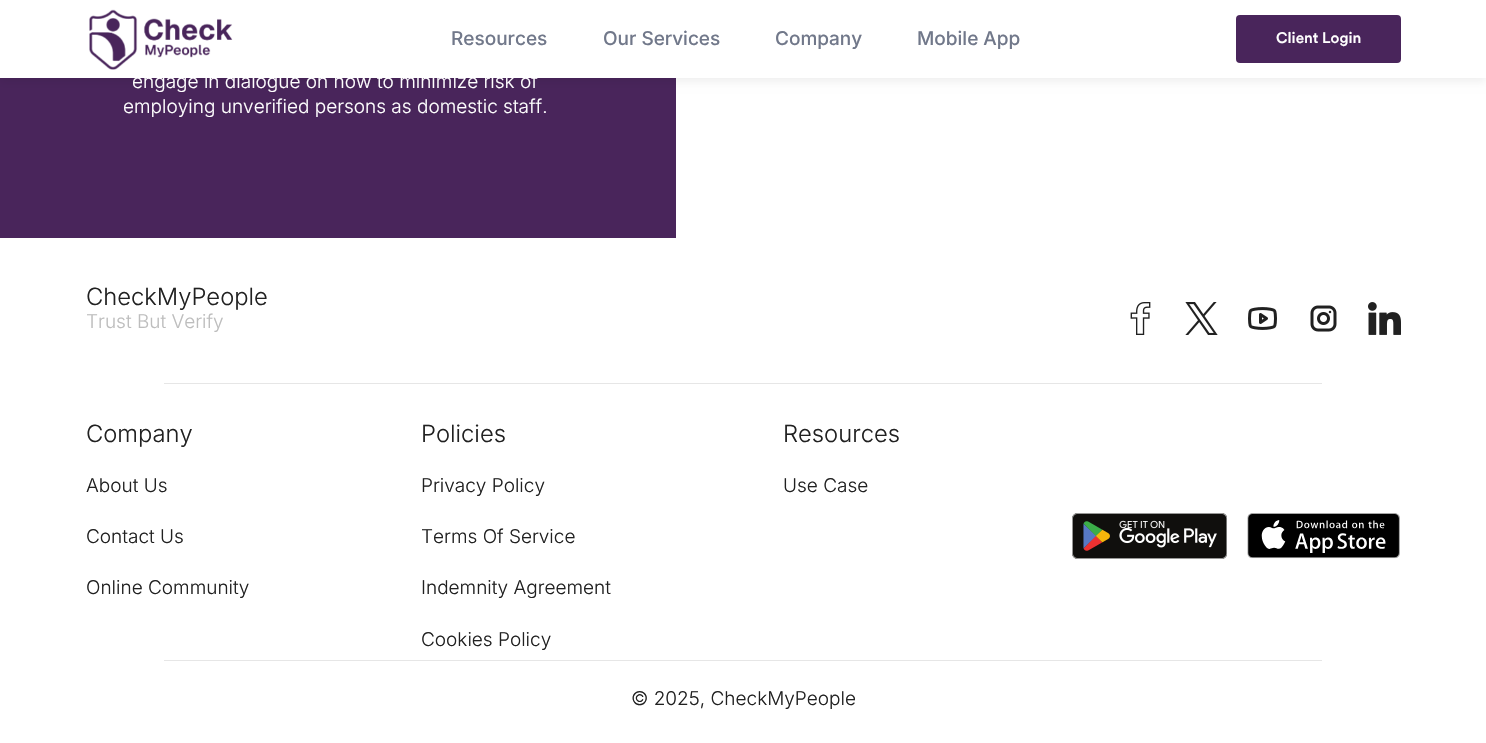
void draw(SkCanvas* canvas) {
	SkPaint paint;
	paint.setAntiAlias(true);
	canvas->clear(0xffffffff);
	paint.setColor(0xff49255b);
	canvas->drawRect(SkRect::MakeXYWH(0, 78, 676, 160), paint);
	paint.setColor(0x0f000000);
	paint.setMaskFilter(SkMaskFilter::MakeBlur(kNormal_SkBlurStyle, 4));
	canvas->drawRect(SkRect::MakeXYWH(0, 4, 1486, 78), paint);
	paint.setMaskFilter(nullptr);
	paint.setColor(0xffffffff);
	canvas->drawRect(SkRect::MakeXYWH(0, 0, 1486, 78), paint);
	canvas->drawImageRect(SkImages::DeferredFromEncodedData(SkData::MakeFromFileName("img1.png")), SkRect::MakeXYWH(89, 9, 144, 61), SkSamplingOptions());
	SkFont f1(fontMgr->matchFamilyStyle("Inter", SkFontStyle(500, SkFontStyle::kNormal_Width, SkFontStyle::kUpright_Slant)), 19);
	f1.setSubpixel(true);
	paint.setColor(0xff71788a);
	canvas->drawString("Resources", 451, 45, f1, paint);
	canvas->drawString("Our Services", 603, 45, f1, paint);
	canvas->drawString("Company", 775, 45, f1, paint);
	canvas->drawString("Mobile App", 917, 45, f1, paint);
	paint.setColor(0xff49255b);
	canvas->drawRoundRect(SkRect::MakeXYWH(1236, 15, 165, 48), 4, 4, paint);
	SkFont f2(fontMgr->matchFamilyStyle("Circular", SkFontStyle(500, SkFontStyle::kNormal_Width, SkFontStyle::kUpright_Slant)), 15.25);
	f2.setSubpixel(true);
	paint.setColor(0xffffffff);
	canvas->drawString("Client Login", 1276, 43, f2, paint);
	SkFont f3(fontMgr->matchFamilyStyle("Inter", SkFontStyle(300, SkFontStyle::kNormal_Width, SkFontStyle::kUpright_Slant)), 19);
	f3.setSubpixel(true);
	canvas->drawString("engage in dialogue on how to minimize risk of", 132, 88, f3, paint);
	canvas->drawString("employing unverified persons as domestic staff.", 123, 113, f3, paint);
	SkFont f4(fontMgr->matchFamilyStyle("Inter", SkFontStyle(300, SkFontStyle::kNormal_Width, SkFontStyle::kUpright_Slant)), 23.75);
	f4.setSubpixel(true);
	paint.setColor(0xff212121);
	canvas->drawString("CheckMyPeople", 86, 305, f4, paint);
	paint.setColor(0xffbdbdbd);
	canvas->drawString("Trust But Verify", 86, 328, f3, paint);
	canvas->drawImageRect(SkImages::DeferredFromEncodedData(SkData::MakeFromFileName("img2.png")), SkRect::MakeXYWH(1130, 302, 21, 33), SkSamplingOptions());
	canvas->drawImageRect(SkImages::DeferredFromEncodedData(SkData::MakeFromFileName("img3.png")), SkRect::MakeXYWH(1185, 302, 33, 33), SkSamplingOptions());
	canvas->drawImageRect(SkImages::DeferredFromEncodedData(SkData::MakeFromFileName("img4.png")), SkRect::MakeXYWH(1248, 307, 29, 23), SkSamplingOptions());
	canvas->drawImageRect(SkImages::DeferredFromEncodedData(SkData::MakeFromFileName("img5.png")), SkRect::MakeXYWH(1310, 305, 27, 27), SkSamplingOptions());
	canvas->drawImageRect(SkImages::DeferredFromEncodedData(SkData::MakeFromFileName("img6.png")), SkRect::MakeXYWH(1368, 302, 33, 33), SkSamplingOptions());
	paint.setColor(0xffe6e6e6);
	canvas->drawRect(SkRect::MakeXYWH(164, 383, 1158, 1), paint);
	paint.setColor(0xff212121);
	canvas->drawString("Company", 86, 442, f4, paint);
	canvas->drawString("About Us", 86, 492, f3, paint);
	canvas->drawString("Contact Us", 86, 543, f3, paint);
	canvas->drawString("Online Community", 86, 594, f3, paint);
	canvas->drawString("Policies", 421, 442, f4, paint);
	canvas->drawString("Privacy Policy", 421, 492, f3, paint);
	canvas->drawString("Terms Of Service", 421, 543, f3, paint);
	canvas->drawString("Indemnity Agreement", 421, 594, f3, paint);
	canvas->drawString("Cookies Policy", 421, 646, f3, paint);
	canvas->drawString("Resources", 783, 442, f4, paint);
	canvas->drawString("Use Case", 783, 492, f3, paint);
	canvas->drawImageRect(SkImages::DeferredFromEncodedData(SkData::MakeFromFileName("img7.png")), SkRect::MakeXYWH(1072, 513, 155, 46), SkSamplingOptions());
	canvas->drawImageRect(SkImages::DeferredFromEncodedData(SkData::MakeFromFileName("img8.png")), SkRect::MakeXYWH(1247, 513, 153, 46), SkSamplingOptions());
	paint.setColor(0xffe6e6e6);
	canvas->drawRect(SkRect::MakeXYWH(164, 660, 1158, 1), paint);
	paint.setColor(0xff212121);
	canvas->drawString("© 2025, CheckMyPeople", 631, 705, f3, paint);
}
